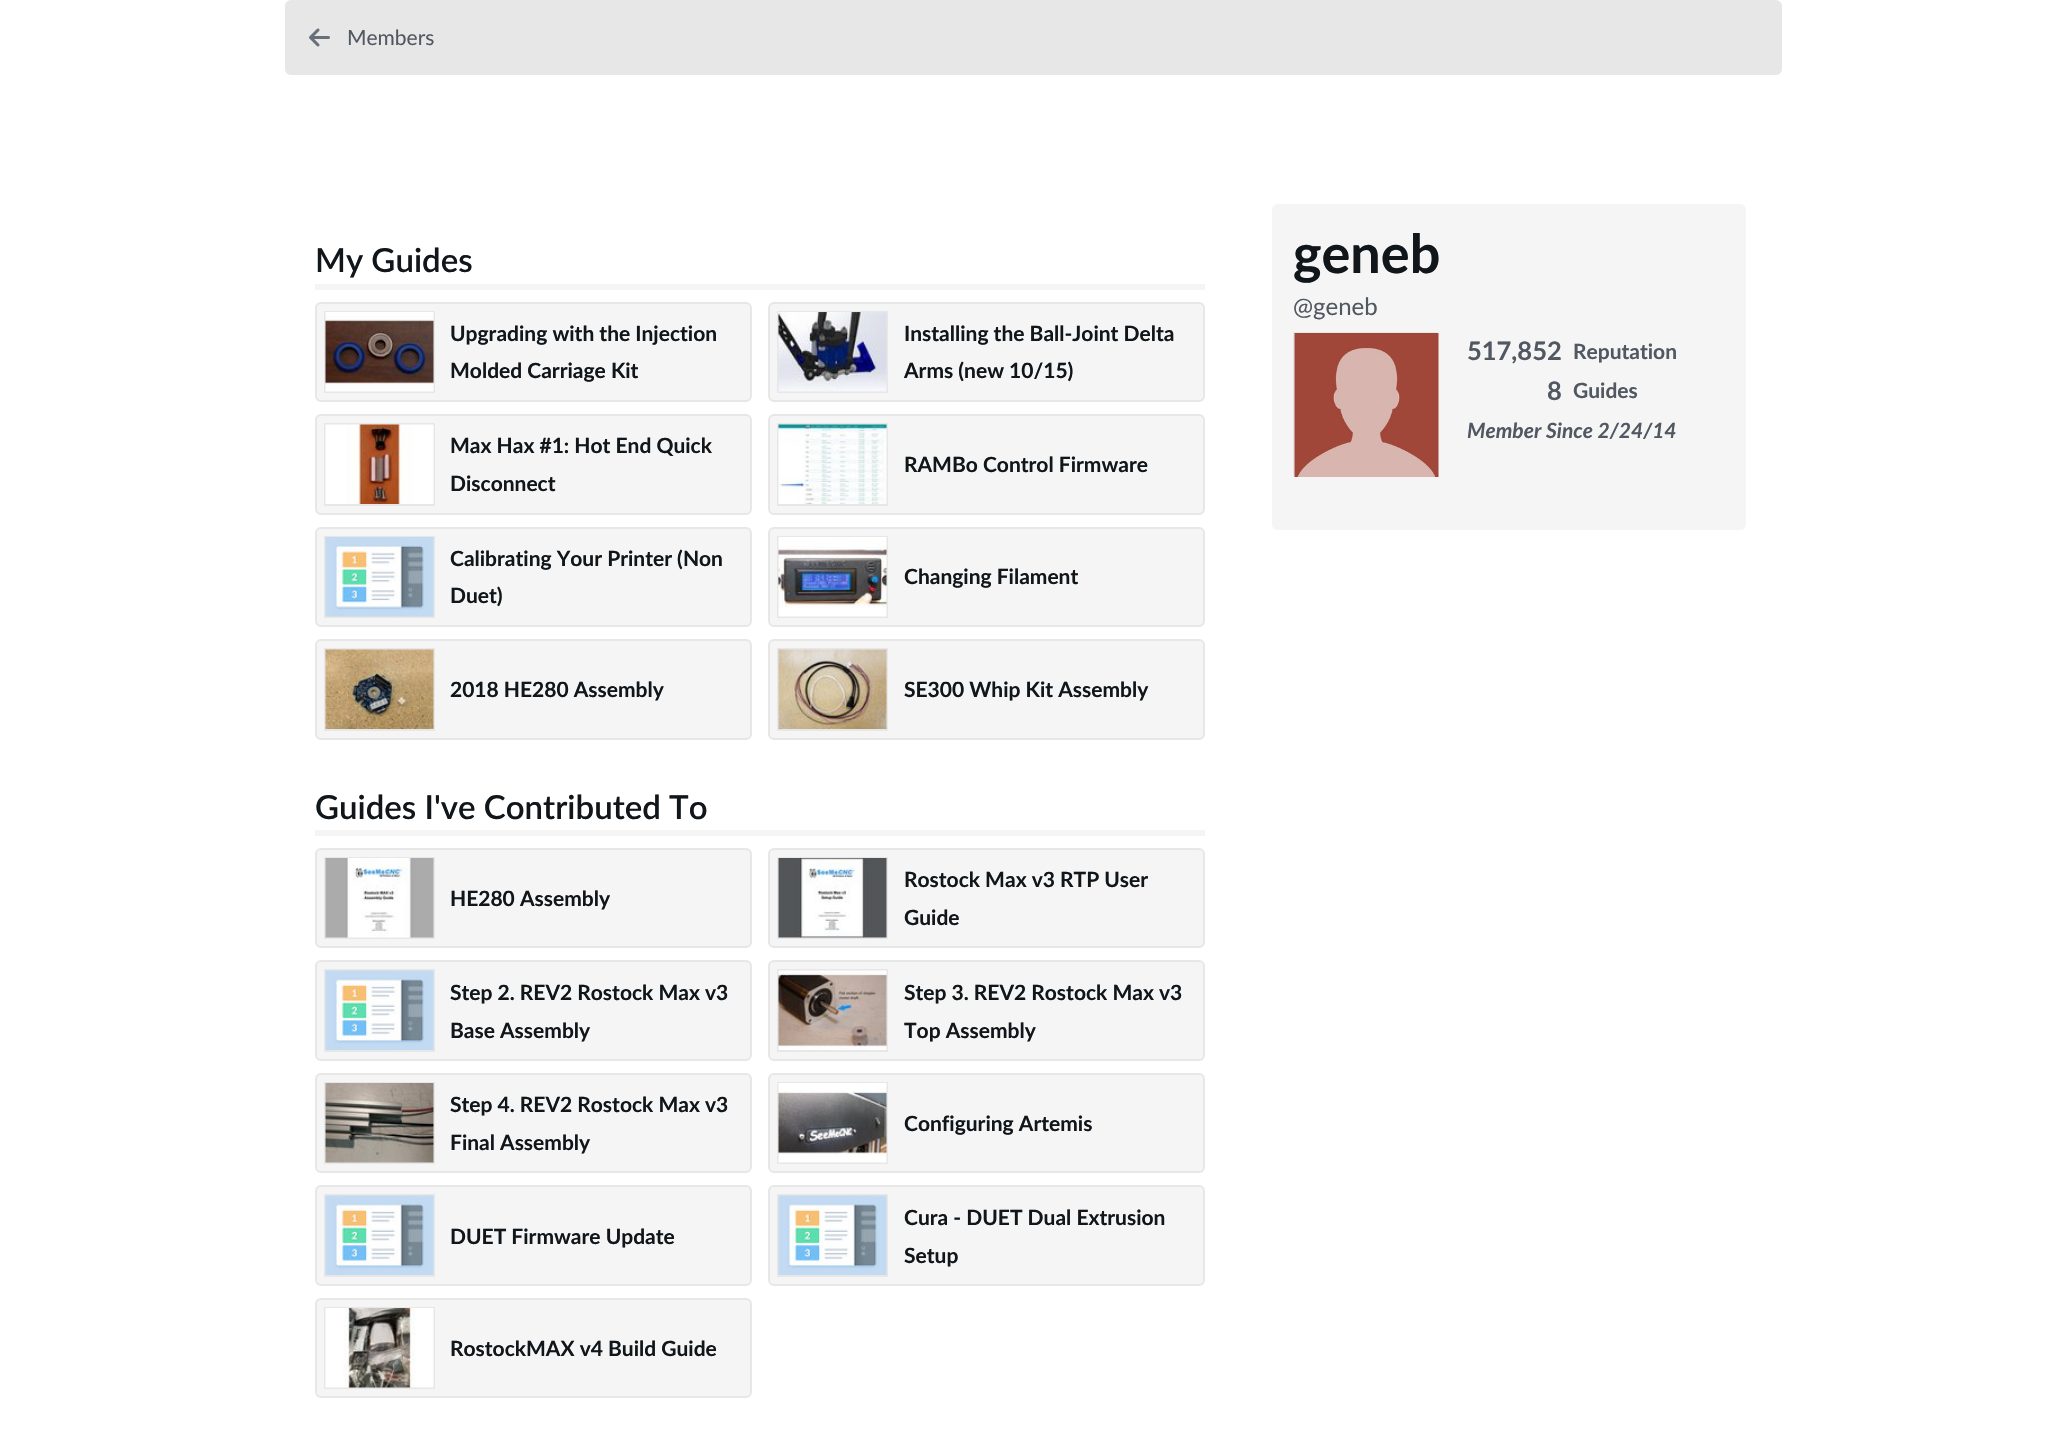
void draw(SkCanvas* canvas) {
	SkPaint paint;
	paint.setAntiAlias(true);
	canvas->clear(0xffffffff);
	paint.setColor(0xffe7e7e7);
	canvas->drawRoundRect(SkRect::MakeXYWH(285, 0, 1497, 75), 6, 6, paint);
	canvas->drawImageRect(SkImages::DeferredFromEncodedData(SkData::MakeFromFileName("img1.png")), SkRect::MakeXYWH(309, 28, 21, 19), SkSamplingOptions());
	SkFont f1(fontMgr->matchFamilyStyle("Lato", SkFontStyle::Normal()), 21);
	f1.setSubpixel(true);
	paint.setColor(0xff515861);
	canvas->drawString("Members", 347, 45, f1, paint);
	paint.setColor(0xfff5f5f5);
	canvas->drawRect(SkRect::MakeXYWH(315, 284, 890, 6), paint);
	SkFont f2(fontMgr->matchFamilyStyle("Lato", SkFontStyle(600, SkFontStyle::kNormal_Width, SkFontStyle::kUpright_Slant)), 33);
	f2.setSubpixel(true);
	paint.setColor(0xff11161a);
	canvas->drawString("My Guides", 315, 272, f2, paint);
	paint.setColor(0xfff5f5f5);
	canvas->drawRoundRect(SkRect::MakeXYWH(316, 303, 435, 98), 5, 5, paint);
	paint.setStroke(true);
	paint.setStrokeWidth(2);
	paint.setColor(0xffe7e7e7);
	canvas->drawRoundRect(SkRect::MakeXYWH(316, 303, 435, 98), 5, 5, paint);
	canvas->drawRect(SkRect::MakeXYWH(325, 312, 109, 80), paint);
	canvas->drawImageRect(SkImages::DeferredFromEncodedData(SkData::MakeFromFileName("img2.png")), SkRect::MakeXYWH(325, 312, 109, 80), SkSamplingOptions());
	SkFont f3(fontMgr->matchFamilyStyle("Lato", SkFontStyle::Bold()), 21);
	f3.setSubpixel(true);
	paint.setStroke(false);
	paint.setColor(0xff11161a);
	canvas->drawString("Upgrading with the Injection", 450, 341, f3, paint);
	canvas->drawString("Molded Carriage Kit", 450, 378, f3, paint);
	paint.setColor(0xfff5f5f5);
	canvas->drawRoundRect(SkRect::MakeXYWH(769, 303, 435, 98), 5, 5, paint);
	paint.setStroke(true);
	paint.setColor(0xffe7e7e7);
	canvas->drawRoundRect(SkRect::MakeXYWH(769, 303, 435, 98), 5, 5, paint);
	canvas->drawRect(SkRect::MakeXYWH(778, 312, 109, 80), paint);
	canvas->drawImageRect(SkImages::DeferredFromEncodedData(SkData::MakeFromFileName("img3.png")), SkRect::MakeXYWH(778, 312, 109, 80), SkSamplingOptions());
	paint.setStroke(false);
	paint.setColor(0xff11161a);
	canvas->drawString("Installing the Ball-Joint Delta", 904, 341, f3, paint);
	canvas->drawString("Arms (new 10/15)", 904, 378, f3, paint);
	paint.setColor(0xfff5f5f5);
	canvas->drawRoundRect(SkRect::MakeXYWH(316, 415, 435, 99), 5, 5, paint);
	paint.setStroke(true);
	paint.setColor(0xffe7e7e7);
	canvas->drawRoundRect(SkRect::MakeXYWH(316, 415, 435, 99), 5, 5, paint);
	canvas->drawRect(SkRect::MakeXYWH(325, 424, 109, 81), paint);
	canvas->drawImageRect(SkImages::DeferredFromEncodedData(SkData::MakeFromFileName("img4.png")), SkRect::MakeXYWH(325, 424, 109, 80), SkSamplingOptions());
	paint.setStroke(false);
	paint.setColor(0xff11161a);
	canvas->drawString("Max Hax #1: Hot End Quick", 450, 453, f3, paint);
	canvas->drawString("Disconnect", 450, 491, f3, paint);
	paint.setColor(0xfff5f5f5);
	canvas->drawRoundRect(SkRect::MakeXYWH(769, 415, 435, 99), 5, 5, paint);
	paint.setStroke(true);
	paint.setColor(0xffe7e7e7);
	canvas->drawRoundRect(SkRect::MakeXYWH(769, 415, 435, 99), 5, 5, paint);
	canvas->drawRect(SkRect::MakeXYWH(778, 424, 109, 81), paint);
	canvas->drawImageRect(SkImages::DeferredFromEncodedData(SkData::MakeFromFileName("img5.png")), SkRect::MakeXYWH(778, 424, 109, 80), SkSamplingOptions());
	paint.setStroke(false);
	paint.setColor(0xff11161a);
	canvas->drawString("RAMBo Control Firmware", 904, 472, f3, paint);
	paint.setColor(0xfff5f5f5);
	canvas->drawRoundRect(SkRect::MakeXYWH(316, 528, 435, 98), 5, 5, paint);
	paint.setStroke(true);
	paint.setColor(0xffe7e7e7);
	canvas->drawRoundRect(SkRect::MakeXYWH(316, 528, 435, 98), 5, 5, paint);
	canvas->drawRect(SkRect::MakeXYWH(325, 537, 109, 80), paint);
	canvas->drawImageRect(SkImages::DeferredFromEncodedData(SkData::MakeFromFileName("img6.png")), SkRect::MakeXYWH(325, 537, 109, 80), SkSamplingOptions());
	paint.setStroke(false);
	paint.setColor(0xff11161a);
	canvas->drawString("Calibrating Your Printer (Non", 450, 566, f3, paint);
	canvas->drawString("Duet)", 450, 603, f3, paint);
	paint.setColor(0xfff5f5f5);
	canvas->drawRoundRect(SkRect::MakeXYWH(769, 528, 435, 98), 5, 5, paint);
	paint.setStroke(true);
	paint.setColor(0xffe7e7e7);
	canvas->drawRoundRect(SkRect::MakeXYWH(769, 528, 435, 98), 5, 5, paint);
	canvas->drawRect(SkRect::MakeXYWH(778, 537, 109, 80), paint);
	canvas->drawImageRect(SkImages::DeferredFromEncodedData(SkData::MakeFromFileName("img7.png")), SkRect::MakeXYWH(778, 537, 109, 80), SkSamplingOptions());
	paint.setStroke(false);
	paint.setColor(0xff11161a);
	canvas->drawString("Changing Filament", 904, 584, f3, paint);
	paint.setColor(0xfff5f5f5);
	canvas->drawRoundRect(SkRect::MakeXYWH(316, 640, 435, 99), 5, 5, paint);
	paint.setStroke(true);
	paint.setColor(0xffe7e7e7);
	canvas->drawRoundRect(SkRect::MakeXYWH(316, 640, 435, 99), 5, 5, paint);
	canvas->drawRect(SkRect::MakeXYWH(325, 649, 109, 81), paint);
	canvas->drawImageRect(SkImages::DeferredFromEncodedData(SkData::MakeFromFileName("img8.png")), SkRect::MakeXYWH(325, 649, 109, 80), SkSamplingOptions());
	paint.setStroke(false);
	paint.setColor(0xff11161a);
	canvas->drawString("2018 HE280 Assembly", 450, 697, f3, paint);
	paint.setColor(0xfff5f5f5);
	canvas->drawRoundRect(SkRect::MakeXYWH(769, 640, 435, 99), 5, 5, paint);
	paint.setStroke(true);
	paint.setColor(0xffe7e7e7);
	canvas->drawRoundRect(SkRect::MakeXYWH(769, 640, 435, 99), 5, 5, paint);
	canvas->drawRect(SkRect::MakeXYWH(778, 649, 109, 81), paint);
	canvas->drawImageRect(SkImages::DeferredFromEncodedData(SkData::MakeFromFileName("img9.png")), SkRect::MakeXYWH(778, 649, 109, 80), SkSamplingOptions());
	paint.setStroke(false);
	paint.setColor(0xff11161a);
	canvas->drawString("SE300 Whip Kit Assembly", 904, 697, f3, paint);
	paint.setColor(0xfff5f5f5);
	canvas->drawRect(SkRect::MakeXYWH(315, 830, 890, 6), paint);
	paint.setColor(0xff11161a);
	canvas->drawString("Guides I've Contributed To", 315, 819, f2, paint);
	paint.setColor(0xfff5f5f5);
	canvas->drawRoundRect(SkRect::MakeXYWH(316, 849, 435, 98), 5, 5, paint);
	paint.setStroke(true);
	paint.setColor(0xffe7e7e7);
	canvas->drawRoundRect(SkRect::MakeXYWH(316, 849, 435, 98), 5, 5, paint);
	canvas->drawRect(SkRect::MakeXYWH(325, 858, 109, 80), paint);
	canvas->drawImageRect(SkImages::DeferredFromEncodedData(SkData::MakeFromFileName("img10.png")), SkRect::MakeXYWH(325, 858, 109, 80), SkSamplingOptions());
	paint.setStroke(false);
	paint.setColor(0xff11161a);
	canvas->drawString("HE280 Assembly", 450, 906, f3, paint);
	paint.setColor(0xfff5f5f5);
	canvas->drawRoundRect(SkRect::MakeXYWH(769, 849, 435, 98), 5, 5, paint);
	paint.setStroke(true);
	paint.setColor(0xffe7e7e7);
	canvas->drawRoundRect(SkRect::MakeXYWH(769, 849, 435, 98), 5, 5, paint);
	canvas->drawRect(SkRect::MakeXYWH(778, 858, 109, 80), paint);
	canvas->drawImageRect(SkImages::DeferredFromEncodedData(SkData::MakeFromFileName("img11.png")), SkRect::MakeXYWH(778, 858, 109, 80), SkSamplingOptions());
	paint.setStroke(false);
	paint.setColor(0xff11161a);
	canvas->drawString("Rostock Max v3 RTP User", 904, 887, f3, paint);
	canvas->drawString("Guide", 904, 925, f3, paint);
	paint.setColor(0xfff5f5f5);
	canvas->drawRoundRect(SkRect::MakeXYWH(316, 961, 435, 99), 5, 5, paint);
	paint.setStroke(true);
	paint.setColor(0xffe7e7e7);
	canvas->drawRoundRect(SkRect::MakeXYWH(316, 961, 435, 99), 5, 5, paint);
	canvas->drawRect(SkRect::MakeXYWH(325, 970, 109, 81), paint);
	canvas->drawImageRect(SkImages::DeferredFromEncodedData(SkData::MakeFromFileName("img12.png")), SkRect::MakeXYWH(325, 970, 109, 80), SkSamplingOptions());
	paint.setStroke(false);
	paint.setColor(0xff11161a);
	canvas->drawString("Step 2. REV2 Rostock Max v3", 450, 1000, f3, paint);
	canvas->drawString("Base Assembly", 450, 1038, f3, paint);
	paint.setColor(0xfff5f5f5);
	canvas->drawRoundRect(SkRect::MakeXYWH(769, 961, 435, 99), 5, 5, paint);
	paint.setStroke(true);
	paint.setColor(0xffe7e7e7);
	canvas->drawRoundRect(SkRect::MakeXYWH(769, 961, 435, 99), 5, 5, paint);
	canvas->drawRect(SkRect::MakeXYWH(778, 970, 109, 81), paint);
	canvas->drawImageRect(SkImages::DeferredFromEncodedData(SkData::MakeFromFileName("img13.png")), SkRect::MakeXYWH(778, 970, 109, 80), SkSamplingOptions());
	paint.setStroke(false);
	paint.setColor(0xff11161a);
	canvas->drawString("Step 3. REV2 Rostock Max v3", 904, 1000, f3, paint);
	canvas->drawString("Top Assembly", 904, 1038, f3, paint);
	paint.setColor(0xfff5f5f5);
	canvas->drawRoundRect(SkRect::MakeXYWH(316, 1074, 435, 98), 5, 5, paint);
	paint.setStroke(true);
	paint.setColor(0xffe7e7e7);
	canvas->drawRoundRect(SkRect::MakeXYWH(316, 1074, 435, 98), 5, 5, paint);
	canvas->drawRect(SkRect::MakeXYWH(325, 1083, 109, 80), paint);
	canvas->drawImageRect(SkImages::DeferredFromEncodedData(SkData::MakeFromFileName("img14.png")), SkRect::MakeXYWH(325, 1083, 109, 80), SkSamplingOptions());
	paint.setStroke(false);
	paint.setColor(0xff11161a);
	canvas->drawString("Step 4. REV2 Rostock Max v3", 450, 1112, f3, paint);
	canvas->drawString("Final Assembly", 450, 1150, f3, paint);
	paint.setColor(0xfff5f5f5);
	canvas->drawRoundRect(SkRect::MakeXYWH(769, 1074, 435, 98), 5, 5, paint);
	paint.setStroke(true);
	paint.setColor(0xffe7e7e7);
	canvas->drawRoundRect(SkRect::MakeXYWH(769, 1074, 435, 98), 5, 5, paint);
	canvas->drawRect(SkRect::MakeXYWH(778, 1083, 109, 80), paint);
	canvas->drawImageRect(SkImages::DeferredFromEncodedData(SkData::MakeFromFileName("img15.png")), SkRect::MakeXYWH(778, 1083, 109, 80), SkSamplingOptions());
	paint.setStroke(false);
	paint.setColor(0xff11161a);
	canvas->drawString("Configuring Artemis", 904, 1131, f3, paint);
	paint.setColor(0xfff5f5f5);
	canvas->drawRoundRect(SkRect::MakeXYWH(316, 1186, 435, 99), 5, 5, paint);
	paint.setStroke(true);
	paint.setColor(0xffe7e7e7);
	canvas->drawRoundRect(SkRect::MakeXYWH(316, 1186, 435, 99), 5, 5, paint);
	canvas->drawRect(SkRect::MakeXYWH(325, 1195, 109, 81), paint);
	canvas->drawImageRect(SkImages::DeferredFromEncodedData(SkData::MakeFromFileName("img12.png")), SkRect::MakeXYWH(325, 1195, 109, 80), SkSamplingOptions());
	paint.setStroke(false);
	paint.setColor(0xff11161a);
	canvas->drawString("DUET Firmware Update", 450, 1244, f3, paint);
	paint.setColor(0xfff5f5f5);
	canvas->drawRoundRect(SkRect::MakeXYWH(769, 1186, 435, 99), 5, 5, paint);
	paint.setStroke(true);
	paint.setColor(0xffe7e7e7);
	canvas->drawRoundRect(SkRect::MakeXYWH(769, 1186, 435, 99), 5, 5, paint);
	canvas->drawRect(SkRect::MakeXYWH(778, 1195, 109, 81), paint);
	canvas->drawImageRect(SkImages::DeferredFromEncodedData(SkData::MakeFromFileName("img16.png")), SkRect::MakeXYWH(778, 1195, 109, 80), SkSamplingOptions());
	paint.setStroke(false);
	paint.setColor(0xff11161a);
	canvas->drawString("Cura - DUET Dual Extrusion", 904, 1225, f3, paint);
	canvas->drawString("Setup", 904, 1263, f3, paint);
	paint.setColor(0xfff5f5f5);
	canvas->drawRoundRect(SkRect::MakeXYWH(316, 1299, 435, 98), 5, 5, paint);
	paint.setStroke(true);
	paint.setColor(0xffe7e7e7);
	canvas->drawRoundRect(SkRect::MakeXYWH(316, 1299, 435, 98), 5, 5, paint);
	canvas->drawRect(SkRect::MakeXYWH(325, 1308, 109, 80), paint);
	canvas->drawImageRect(SkImages::DeferredFromEncodedData(SkData::MakeFromFileName("img17.png")), SkRect::MakeXYWH(325, 1308, 109, 80), SkSamplingOptions());
	paint.setStroke(false);
	paint.setColor(0xff11161a);
	canvas->drawString("RostockMAX v4 Build Guide", 450, 1356, f3, paint);
	paint.setColor(0xfff5f5f5);
	canvas->drawRoundRect(SkRect::MakeXYWH(1272, 204, 474, 326), 6, 6, paint);
	SkFont f4(fontMgr->matchFamilyStyle("Lato", SkFontStyle::Bold()), 54);
	f4.setSubpixel(true);
	paint.setColor(0xff11161a);
	canvas->drawString("geneb", 1293, 273, f4, paint);
	SkFont f5(fontMgr->matchFamilyStyle("Lato", SkFontStyle::Normal()), 24);
	f5.setSubpixel(true);
	paint.setColor(0xff515861);
	canvas->drawString("@geneb", 1293, 315, f5, paint);
	paint.setStroke(true);
	paint.setColor(0xffe7e7e7);
	canvas->drawRect(SkRect::MakeXYWH(1294, 333, 142, 142), paint);
	canvas->drawImageRect(SkImages::DeferredFromEncodedData(SkData::MakeFromFileName("img18.png")), SkRect::MakeXYWH(1294, 333, 145, 144), SkSamplingOptions());
	SkFont f6(fontMgr->matchFamilyStyle("Lato", SkFontStyle::Bold()), 25.5);
	f6.setSubpixel(true);
	paint.setStroke(false);
	paint.setColor(0xff515861);
	canvas->drawString("517,852", 1467, 360, f6, paint);
	canvas->drawString("Reputation", 1573, 359, f3, paint);
	canvas->drawString("8", 1547, 400, f6, paint);
	canvas->drawString("Guides", 1573, 398, f3, paint);
	SkFont f7(fontMgr->matchFamilyStyle("Lato", SkFontStyle::BoldItalic()), 21);
	f7.setSubpixel(true);
	canvas->drawString("Member Since 2/24/14", 1467, 438, f7, paint);
}
